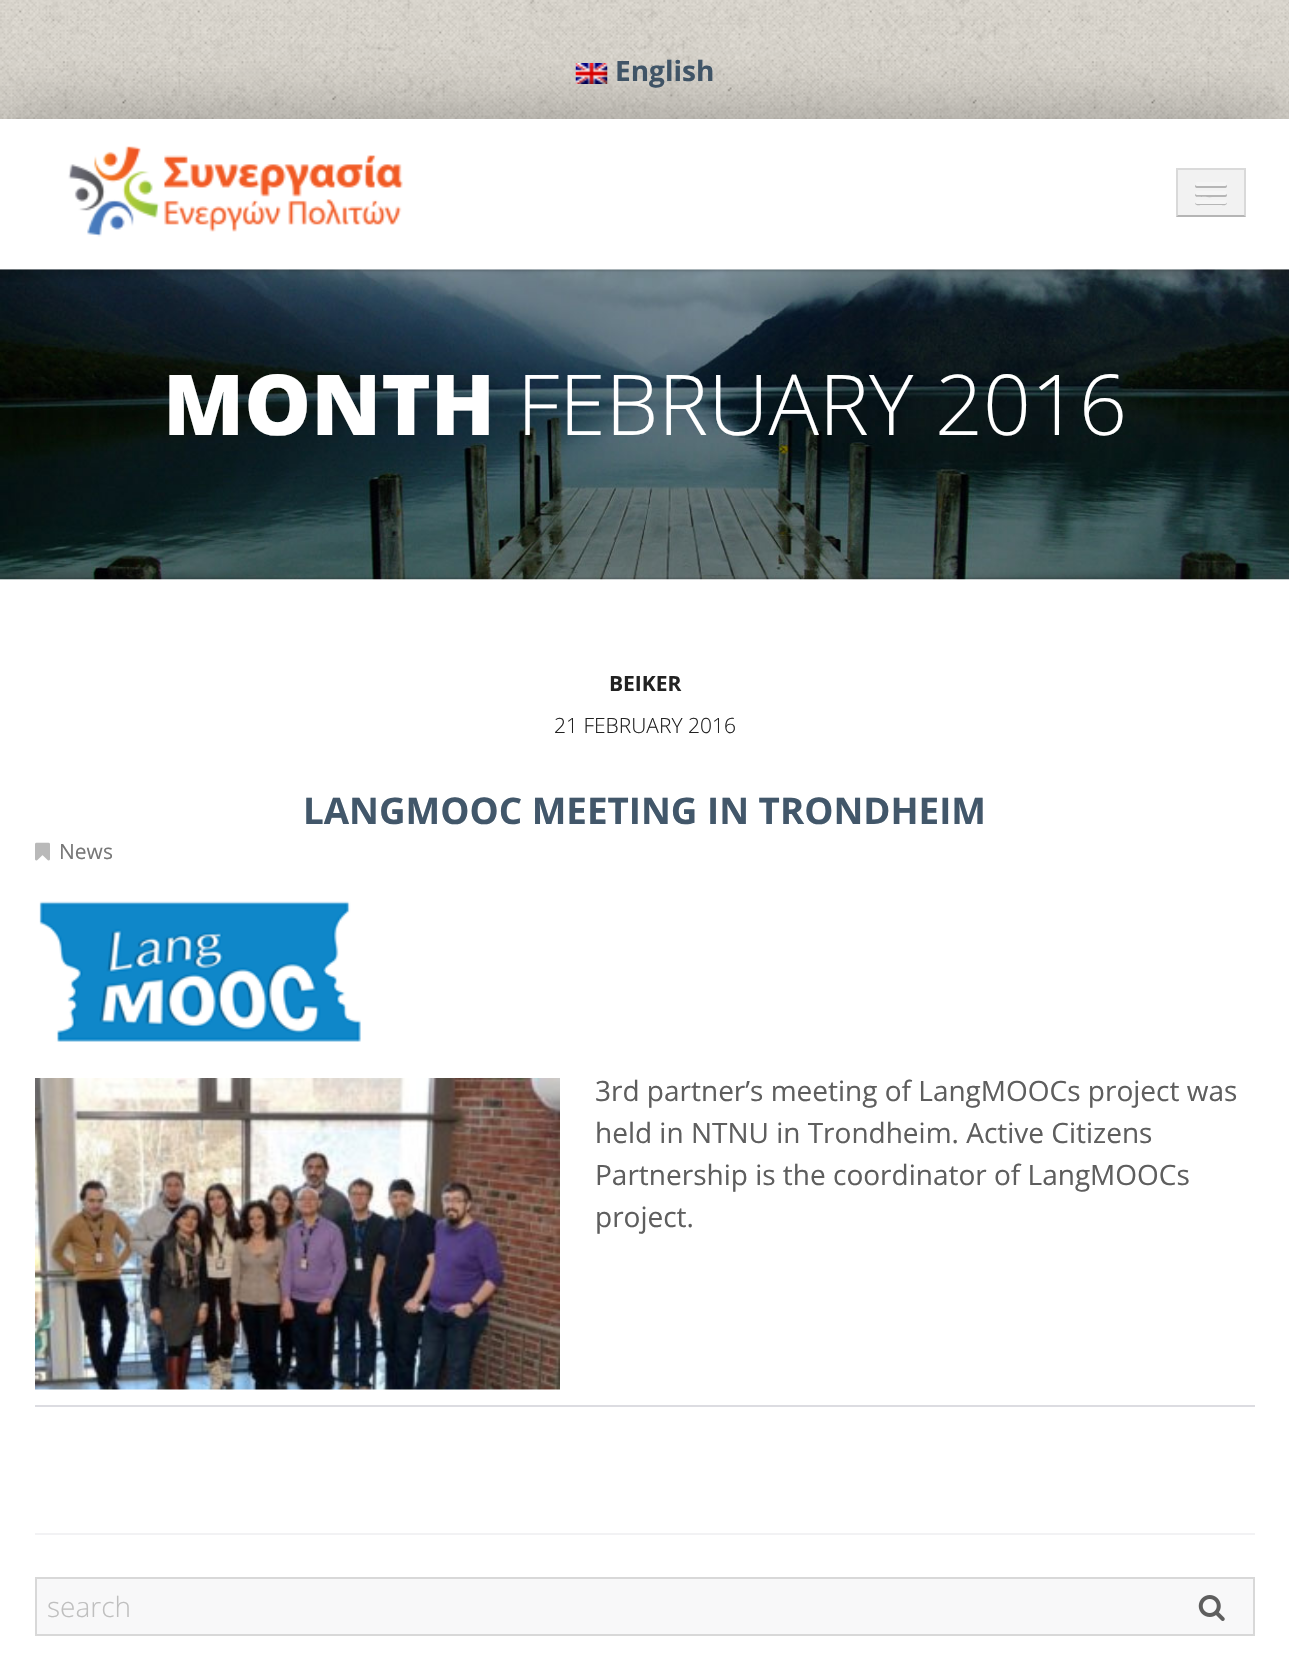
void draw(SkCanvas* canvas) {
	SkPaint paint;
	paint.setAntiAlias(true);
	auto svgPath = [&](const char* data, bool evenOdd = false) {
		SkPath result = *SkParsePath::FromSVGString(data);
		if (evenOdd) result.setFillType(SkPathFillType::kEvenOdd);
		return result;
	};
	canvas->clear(0xffffffff);
	canvas->drawImageRect(SkImages::DeferredFromEncodedData(SkData::MakeFromFileName("img1.png")), SkRect::MakeXYWH(0, 0, 1289, 119), SkSamplingOptions());
	canvas->drawImageRect(SkImages::DeferredFromEncodedData(SkData::MakeFromFileName("img2.png")), SkRect::MakeXYWH(575, 63, 33, 21), SkSamplingOptions());
	SkFont f1(fontMgr->matchFamilyStyle("Open Sans", SkFontStyle::Bold()), 28);
	f1.setSubpixel(true);
	paint.setColor(0xff42576a);
	canvas->drawString("English", 615, 81, f1, paint);
	paint.setColor(0x4d000000);
	paint.setMaskFilter(SkMaskFilter::MakeBlur(kNormal_SkBlurStyle, 35));
	canvas->drawRect(SkRect::MakeXYWH(0, 119, 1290, 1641), paint);
	paint.setMaskFilter(nullptr);
	paint.setColor(0xffffffff);
	canvas->drawRect(SkRect::MakeXYWH(0, 119, 1289, 1536), paint);
	canvas->drawImageRect(SkImages::DeferredFromEncodedData(SkData::MakeFromFileName("img3.png")), SkRect::MakeXYWH(68, 146, 335, 91), SkSamplingOptions());
	paint.setColor(0xfff2f2f2);
	canvas->drawRect(SkRect::MakeXYWH(1176, 168, 70, 49), paint);
	paint.setColor(0xffdadada);
	canvas->drawPath(svgPath("M1176 168H1246L1244 170H1178Z"), paint);
	paint.setColor(0x1a000000);
	canvas->drawPath(svgPath("M1246 168V217L1244 215V170Z"), paint);
	paint.setColor(0x40000000);
	canvas->drawPath(svgPath("M1246 217H1176L1178 215H1244Z"), paint);
	paint.setColor(0x1a000000);
	canvas->drawPath(svgPath("M1176 217V168L1178 170V215Z"), paint);
	paint.setColor(0xffb6b6b6);
	canvas->drawPath(svgPath("M1195.5 184.5C1194.5 186 1195 187.5 1196.5 188H1225.5C1227 187.5 1227.5 186 1226.5 184.5L1225 185.5H1197Z"), paint);
	paint.setColor(0xfff5f5f5);
	canvas->drawRoundRect(SkRect::MakeXYWH(1195, 182, 32, 4), 2, 2, paint);
	paint.setColor(0xffb6b6b6);
	canvas->drawPath(svgPath("M1195.5 193.5C1194.5 194.5 1195 196 1196 196.5C1197 197.5 1221.5 197 1225 197C1227 197 1227.5 195 1226.5 193.5L1225 194H1197Z"), paint);
	paint.setColor(0xfff5f5f5);
	canvas->drawRoundRect(SkRect::MakeXYWH(1195, 191, 32, 4), 2, 2, paint);
	paint.setColor(0xffb6b6b6);
	canvas->drawPath(svgPath("M1195.5 202L1195 203.5C1195.5 206 1200.5 205 1201.5 205H1220.5C1221.5 205 1226.5 206 1227 203.5L1226.5 202C1226.5 202.5 1226 203 1225 203H1197C1196 203 1195.5 202.5 1195.5 202Z"), paint);
	paint.setColor(0xfff5f5f5);
	canvas->drawRoundRect(SkRect::MakeXYWH(1195, 200, 32, 4), 2, 2, paint);
	canvas->drawImageRect(SkImages::DeferredFromEncodedData(SkData::MakeFromFileName("img5.png")), SkRect::MakeXYWH(0, 269, 1289, 311), SkSamplingOptions());
	canvas->drawImageRect(SkImages::DeferredFromEncodedData(SkData::MakeFromFileName("img4.png")), SkRect::MakeXYWH(0, 269, 1289, 13), SkSamplingOptions());
	SkFont f2(fontMgr->matchFamilyStyle("Open Sans", SkFontStyle(800, SkFontStyle::kNormal_Width, SkFontStyle::kUpright_Slant)), 84);
	f2.setSubpixel(true);
	paint.setColor(0xffffffff);
	canvas->drawString("MONTH", 163, 435, f2, paint);
	SkFont f3(fontMgr->matchFamilyStyle("Open Sans", SkFontStyle(300, SkFontStyle::kNormal_Width, SkFontStyle::kUpright_Slant)), 84);
	f3.setSubpixel(true);
	canvas->drawString("FEBRUARY 2016", 517, 435, f3, paint);
	canvas->drawImageRect(SkImages::DeferredFromEncodedData(SkData::MakeFromFileName("img6.png")), SkRect::MakeXYWH(0, 567, 1289, 13), SkSamplingOptions());
	SkFont f4(fontMgr->matchFamilyStyle("Open Sans", SkFontStyle::Bold()), 21);
	f4.setSubpixel(true);
	paint.setColor(0xff222222);
	canvas->drawString("BEIKER", 609, 691, f4, paint);
	SkFont f5(fontMgr->matchFamilyStyle("Open Sans", SkFontStyle(300, SkFontStyle::kNormal_Width, SkFontStyle::kUpright_Slant)), 21);
	f5.setSubpixel(true);
	canvas->drawString("21 FEBRUARY 2016", 554, 733, f5, paint);
	paint.setColor(0xffdcdce1);
	canvas->drawRect(SkRect::MakeXYWH(35, 1405, 1220, 2), paint);
	SkFont f6(fontMgr->matchFamilyStyle("Open Sans", SkFontStyle::Bold()), 36.75);
	f6.setSubpixel(true);
	paint.setColor(0xff42576a);
	canvas->drawString("LANGMOOC MEETING IN TRONDHEIM", 303, 824, f6, paint);
	canvas->drawImageRect(SkImages::DeferredFromEncodedData(SkData::MakeFromFileName("img7.png")), SkRect::MakeXYWH(35, 842, 15, 19), SkSamplingOptions());
	SkFont f7(fontMgr->matchFamilyStyle("Open Sans", SkFontStyle::Normal()), 21);
	f7.setSubpixel(true);
	paint.setColor(0xff777777);
	canvas->drawString("News", 59, 859, f7, paint);
	canvas->drawImageRect(SkImages::DeferredFromEncodedData(SkData::MakeFromFileName("img8.png")), SkRect::MakeXYWH(39, 901, 322, 141), SkSamplingOptions());
	canvas->drawImageRect(SkImages::DeferredFromEncodedData(SkData::MakeFromFileName("img9.png")), SkRect::MakeXYWH(35, 1078, 525, 312), SkSamplingOptions());
	SkFont f8(fontMgr->matchFamilyStyle("Open Sans", SkFontStyle::Normal()), 28);
	f8.setSubpixel(true);
	paint.setColor(0xff5e5e5e);
	canvas->drawString("3rd partner’s meeting of LangMOOCs project was", 595, 1101, f8, paint);
	canvas->drawString("held in NTNU in Trondheim. Active Citizens", 595, 1143, f8, paint);
	canvas->drawString("Partnership is the coordinator of LangMOOCs", 595, 1185, f8, paint);
	canvas->drawString("project.", 595, 1227, f8, paint);
	paint.setColor(0xfff2f2f4);
	canvas->drawRect(SkRect::MakeXYWH(35, 1533, 1220, 2), paint);
	paint.setColor(0xfff8f8f9);
	canvas->drawRect(SkRect::MakeXYWH(36, 1578, 1218, 57), paint);
	paint.setStroke(true);
	paint.setStrokeWidth(2);
	paint.setColor(0xffd8d8d8);
	canvas->drawRect(SkRect::MakeXYWH(36, 1578, 1218, 57), paint);
	SkFont f9(fontMgr->matchFamilyStyle("Open Sans", SkFontStyle(300, SkFontStyle::kNormal_Width, SkFontStyle::kUpright_Slant)), 28);
	f9.setSubpixel(true);
	paint.setStroke(false);
	paint.setColor(0xffbfbfbf);
	canvas->drawString("search", 47, 1617, f9, paint);
	canvas->drawImageRect(SkImages::DeferredFromEncodedData(SkData::MakeFromFileName("img10.png")), SkRect::MakeXYWH(1198, 1595, 27, 26), SkSamplingOptions());
}
